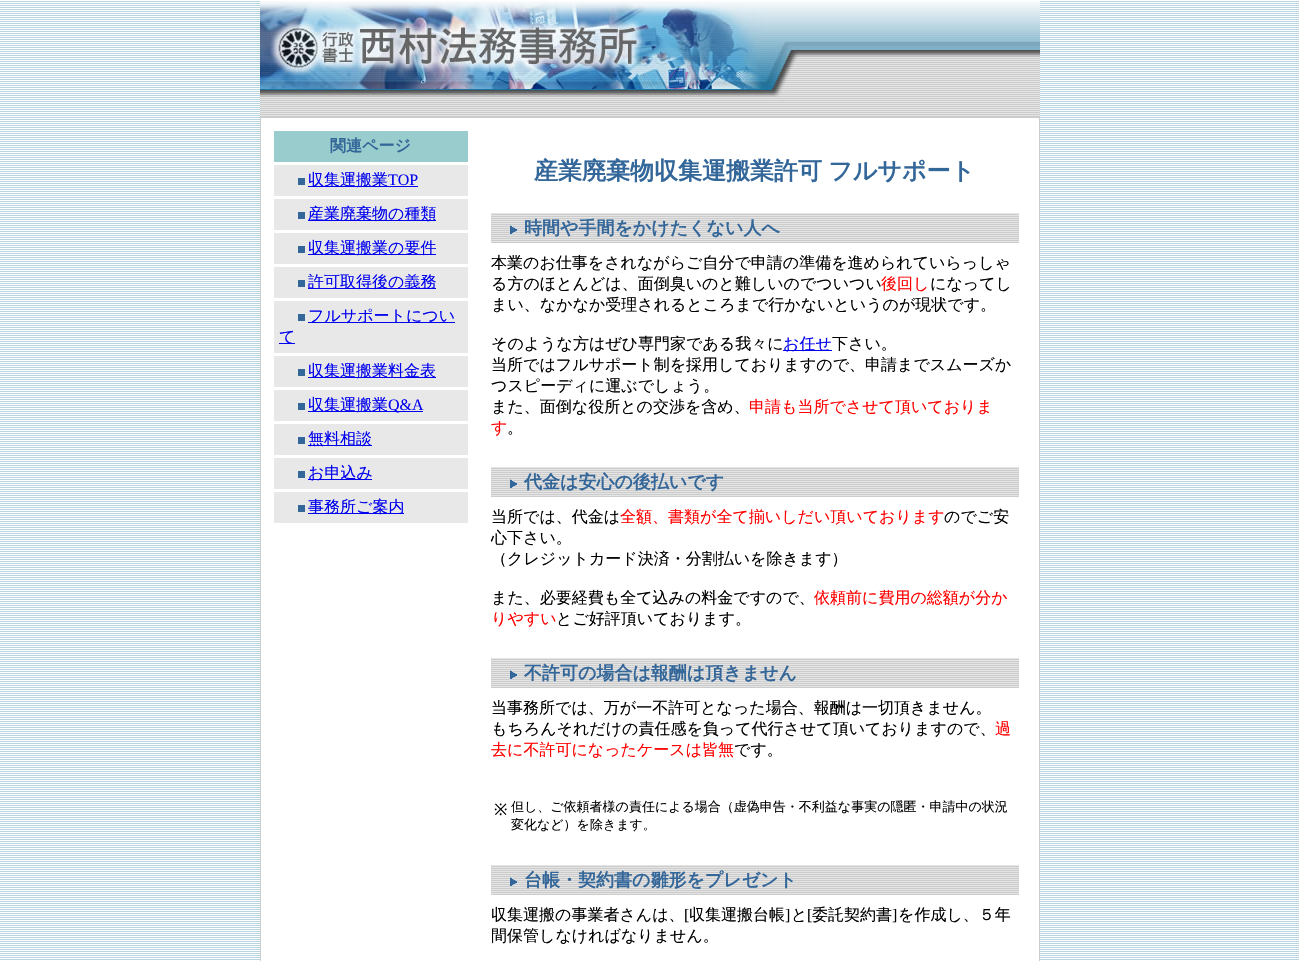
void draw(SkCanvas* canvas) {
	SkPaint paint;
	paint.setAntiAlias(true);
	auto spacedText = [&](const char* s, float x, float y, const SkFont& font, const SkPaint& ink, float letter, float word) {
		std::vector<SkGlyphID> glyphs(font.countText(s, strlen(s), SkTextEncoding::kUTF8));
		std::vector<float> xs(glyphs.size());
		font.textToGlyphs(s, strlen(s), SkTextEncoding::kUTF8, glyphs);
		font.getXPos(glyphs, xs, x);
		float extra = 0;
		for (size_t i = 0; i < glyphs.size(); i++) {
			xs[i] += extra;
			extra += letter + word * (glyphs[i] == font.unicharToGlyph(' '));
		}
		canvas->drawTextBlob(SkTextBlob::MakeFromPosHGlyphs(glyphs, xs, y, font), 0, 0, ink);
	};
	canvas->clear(0xffffffff);
	canvas->drawImageRect(SkImages::DeferredFromEncodedData(SkData::MakeFromFileName("img1.png")), SkRect::MakeXYWH(0, 1, 1299, 959), SkSamplingOptions());
	canvas->drawImageRect(SkImages::DeferredFromEncodedData(SkData::MakeFromFileName("img2.png")), SkRect::MakeXYWH(260, 1, 537, 96), SkSamplingOptions());
	canvas->drawImageRect(SkImages::DeferredFromEncodedData(SkData::MakeFromFileName("img3.png")), SkRect::MakeXYWH(797, 1, 243, 56), SkSamplingOptions());
	canvas->drawImageRect(SkImages::DeferredFromEncodedData(SkData::MakeFromFileName("img4.png")), SkRect::MakeXYWH(797, 57, 243, 40), SkSamplingOptions());
	canvas->drawImageRect(SkImages::DeferredFromEncodedData(SkData::MakeFromFileName("img5.png")), SkRect::MakeXYWH(260, 97, 780, 20), SkSamplingOptions());
	paint.setColor(0xffcccccc);
	canvas->drawRect(SkRect::MakeXYWH(260, 117, 780, 844), paint);
	paint.setColor(0xffffffff);
	canvas->drawRect(SkRect::MakeXYWH(261, 118, 778, 843), paint);
	paint.setColor(0xff99cccc);
	canvas->drawRect(SkRect::MakeXYWH(274, 131, 194, 31), paint);
	SkFont f1(fontMgr->matchFamilyStyle("WenQuanYi Zen Hei", SkFontStyle::Bold()), 16);
	f1.setSubpixel(true);
	paint.setColor(0xff336699);
	canvas->drawString("関連ページ", 330, 151, f1, paint);
	paint.setColor(0xffe8e8e8);
	canvas->drawRect(SkRect::MakeXYWH(274, 165, 194, 31), paint);
	paint.setColor(0xff336699);
	canvas->drawRect(SkRect::MakeXYWH(298, 178, 7, 7), paint);
	paint.setColor(0xff0000ee);
	canvas->drawRect(SkRect::MakeXYWH(308, 186, 110, 1), paint);
	SkFont f2(fontMgr->matchFamilyStyle("WenQuanYi Zen Hei", SkFontStyle(500, SkFontStyle::kNormal_Width, SkFontStyle::kUpright_Slant)), 16);
	f2.setSubpixel(true);
	canvas->drawString("収集運搬業", 308, 185, f2, paint);
	SkFont f3(fontMgr->matchFamilyStyle("Liberation Serif", SkFontStyle::Normal()), 16);
	f3.setSubpixel(true);
	canvas->drawString("TOP", 388, 185, f3, paint);
	paint.setColor(0xffe8e8e8);
	canvas->drawRect(SkRect::MakeXYWH(274, 199, 194, 31), paint);
	paint.setColor(0xff336699);
	canvas->drawRect(SkRect::MakeXYWH(298, 212, 7, 7), paint);
	paint.setColor(0xff0000ee);
	canvas->drawRect(SkRect::MakeXYWH(308, 220, 128, 1), paint);
	canvas->drawString("産業廃棄物の種類", 308, 219, f2, paint);
	paint.setColor(0xffe8e8e8);
	canvas->drawRect(SkRect::MakeXYWH(274, 233, 194, 31), paint);
	paint.setColor(0xff336699);
	canvas->drawRect(SkRect::MakeXYWH(298, 246, 7, 7), paint);
	paint.setColor(0xff0000ee);
	canvas->drawRect(SkRect::MakeXYWH(308, 254, 128, 1), paint);
	canvas->drawString("収集運搬業の要件", 308, 253, f2, paint);
	paint.setColor(0xffe8e8e8);
	canvas->drawRect(SkRect::MakeXYWH(274, 267, 194, 31), paint);
	paint.setColor(0xff336699);
	canvas->drawRect(SkRect::MakeXYWH(298, 280, 7, 7), paint);
	paint.setColor(0xff0000ee);
	canvas->drawRect(SkRect::MakeXYWH(308, 288, 128, 1), paint);
	canvas->drawString("許可取得後の義務", 308, 287, f2, paint);
	paint.setColor(0xffe8e8e8);
	canvas->drawRect(SkRect::MakeXYWH(274, 301, 194, 52), paint);
	paint.setColor(0xff336699);
	canvas->drawRect(SkRect::MakeXYWH(298, 314, 7, 7), paint);
	paint.setColor(0xff0000ee);
	canvas->drawRect(SkRect::MakeXYWH(308, 322, 147, 1), paint);
	canvas->drawString("フルサポートについ", 308, 321, f2, paint);
	canvas->drawRect(SkRect::MakeXYWH(279, 343, 16, 1), paint);
	canvas->drawString("て", 279, 342, f2, paint);
	paint.setColor(0xffe8e8e8);
	canvas->drawRect(SkRect::MakeXYWH(274, 356, 194, 31), paint);
	paint.setColor(0xff336699);
	canvas->drawRect(SkRect::MakeXYWH(298, 369, 7, 7), paint);
	paint.setColor(0xff0000ee);
	canvas->drawRect(SkRect::MakeXYWH(308, 377, 128, 1), paint);
	canvas->drawString("収集運搬業料金表", 308, 376, f2, paint);
	paint.setColor(0xffe8e8e8);
	canvas->drawRect(SkRect::MakeXYWH(274, 390, 194, 31), paint);
	paint.setColor(0xff336699);
	canvas->drawRect(SkRect::MakeXYWH(298, 403, 7, 7), paint);
	paint.setColor(0xff0000ee);
	canvas->drawRect(SkRect::MakeXYWH(308, 411, 115, 1), paint);
	canvas->drawString("収集運搬業", 308, 410, f2, paint);
	canvas->drawString("Q&A", 388, 410, f3, paint);
	paint.setColor(0xffe8e8e8);
	canvas->drawRect(SkRect::MakeXYWH(274, 424, 194, 31), paint);
	paint.setColor(0xff336699);
	canvas->drawRect(SkRect::MakeXYWH(298, 437, 7, 7), paint);
	paint.setColor(0xff0000ee);
	canvas->drawRect(SkRect::MakeXYWH(308, 445, 64, 1), paint);
	canvas->drawString("無料相談", 308, 444, f2, paint);
	paint.setColor(0xffe8e8e8);
	canvas->drawRect(SkRect::MakeXYWH(274, 458, 194, 31), paint);
	paint.setColor(0xff336699);
	canvas->drawRect(SkRect::MakeXYWH(298, 471, 7, 7), paint);
	paint.setColor(0xff0000ee);
	canvas->drawRect(SkRect::MakeXYWH(308, 479, 64, 1), paint);
	canvas->drawString("お申込み", 308, 478, f2, paint);
	paint.setColor(0xffe8e8e8);
	canvas->drawRect(SkRect::MakeXYWH(274, 492, 194, 31), paint);
	paint.setColor(0xff336699);
	canvas->drawRect(SkRect::MakeXYWH(298, 505, 7, 7), paint);
	paint.setColor(0xff0000ee);
	canvas->drawRect(SkRect::MakeXYWH(308, 513, 96, 1), paint);
	canvas->drawString("事務所ご案内", 308, 512, f2, paint);
	SkFont f4(fontMgr->matchFamilyStyle("WenQuanYi Zen Hei", SkFontStyle::Bold()), 24);
	f4.setSubpixel(true);
	paint.setColor(0xff336699);
	spacedText("産業廃棄物収集運搬業許可 フルサポート", 534, 179, f4, paint, 0, -1);
	canvas->drawImageRect(SkImages::DeferredFromEncodedData(SkData::MakeFromFileName("img6.png")), SkRect::MakeXYWH(491, 213, 528, 30), SkSamplingOptions());
	canvas->drawImageRect(SkImages::DeferredFromEncodedData(SkData::MakeFromFileName("img7.png")), SkRect::MakeXYWH(510, 225, 8, 10), SkSamplingOptions());
	SkFont f5(fontMgr->matchFamilyStyle("WenQuanYi Zen Hei", SkFontStyle::Bold()), 18);
	f5.setSubpixel(true);
	canvas->drawString("時間や手間をかけたくない人へ", 524, 234, f5, paint);
	paint.setColor(0xff000000);
	canvas->drawString("本業のお仕事をされながらご自分で申請の準備を進められていらっしゃ", 491, 268, f2, paint);
	canvas->drawString("る方のほとんどは、面倒臭いのと難しいのでついつい", 491, 289, f2, paint);
	paint.setColor(0xffff0000);
	canvas->drawString("後回し", 881, 289, f2, paint);
	paint.setColor(0xff000000);
	canvas->drawString("になってし", 930, 289, f2, paint);
	canvas->drawString("まい、なかなか受理されるところまで行かないというのが現状です。", 491, 310, f2, paint);
	canvas->drawString("そのような方はぜひ専門家である我々に", 491, 349, f2, paint);
	paint.setColor(0xff0000ee);
	canvas->drawRect(SkRect::MakeXYWH(783, 350, 49, 1), paint);
	canvas->drawString("お任せ", 783, 349, f2, paint);
	paint.setColor(0xff000000);
	canvas->drawString("下さい。", 832, 349, f2, paint);
	canvas->drawString("当所ではフルサポート制を採用しておりますので、申請までスムーズか", 491, 370, f2, paint);
	canvas->drawString("つスピーディに運ぶでしょう。", 491, 391, f2, paint);
	canvas->drawString("また、面倒な役所との交渉を含め、", 491, 412, f2, paint);
	paint.setColor(0xffff0000);
	canvas->drawString("申請も当所でさせて頂いておりま", 749, 412, f2, paint);
	canvas->drawString("す", 491, 433, f2, paint);
	paint.setColor(0xff000000);
	canvas->drawString("。", 507, 433, f2, paint);
	canvas->drawImageRect(SkImages::DeferredFromEncodedData(SkData::MakeFromFileName("img6.png")), SkRect::MakeXYWH(491, 467, 528, 30), SkSamplingOptions());
	canvas->drawImageRect(SkImages::DeferredFromEncodedData(SkData::MakeFromFileName("img7.png")), SkRect::MakeXYWH(510, 479, 8, 10), SkSamplingOptions());
	paint.setColor(0xff336699);
	canvas->drawString("代金は安心の後払いです", 524, 488, f5, paint);
	paint.setColor(0xff000000);
	canvas->drawString("当所では、代金は", 491, 522, f2, paint);
	paint.setColor(0xffff0000);
	canvas->drawString("全額、書類が全て揃いしだい頂いております", 620, 522, f2, paint);
	paint.setColor(0xff000000);
	canvas->drawString("のでご安", 944, 522, f2, paint);
	canvas->drawString("心下さい。", 491, 543, f2, paint);
	canvas->drawString("（クレジットカード決済・分割払いを除きます）", 491, 564, f2, paint);
	canvas->drawString("また、必要経費も全て込みの料金ですので、", 491, 603, f2, paint);
	paint.setColor(0xffff0000);
	canvas->drawString("依頼前に費用の総額が分か", 814, 603, f2, paint);
	canvas->drawString("りやすい", 491, 624, f2, paint);
	paint.setColor(0xff000000);
	canvas->drawString("とご好評頂いております。", 556, 624, f2, paint);
	canvas->drawImageRect(SkImages::DeferredFromEncodedData(SkData::MakeFromFileName("img6.png")), SkRect::MakeXYWH(491, 658, 528, 30), SkSamplingOptions());
	canvas->drawImageRect(SkImages::DeferredFromEncodedData(SkData::MakeFromFileName("img7.png")), SkRect::MakeXYWH(510, 670, 8, 10), SkSamplingOptions());
	paint.setColor(0xff336699);
	canvas->drawString("不許可の場合は報酬は頂きません", 524, 679, f5, paint);
	paint.setColor(0xff000000);
	canvas->drawString("当事務所では、万が一不許可となった場合、報酬は一切頂きません。", 491, 713, f2, paint);
	canvas->drawString("もちろんそれだけの責任感を負って代行させて頂いておりますので、", 491, 734, f2, paint);
	paint.setColor(0xffff0000);
	canvas->drawString("過", 995, 734, f2, paint);
	canvas->drawString("去に不許可になったケースは皆無", 491, 755, f2, paint);
	paint.setColor(0xff000000);
	canvas->drawString("です。", 734, 755, f2, paint);
	SkFont f6(fontMgr->matchFamilyStyle("Noto Sans", SkFontStyle::Normal()), 16);
	f6.setSubpixel(true);
	canvas->drawString("※", 494, 815, f6, paint);
	SkFont f7(fontMgr->matchFamilyStyle("WenQuanYi Zen Hei", SkFontStyle(500, SkFontStyle::kNormal_Width, SkFontStyle::kUpright_Slant)), 13);
	f7.setSubpixel(true);
	canvas->drawString("但し、ご依頼者様の責任による場合（虚偽申告・不利益な事実の隠匿・申請中の状況", 511, 811, f7, paint);
	canvas->drawString("変化など）を除きます。", 511, 829, f7, paint);
	canvas->drawImageRect(SkImages::DeferredFromEncodedData(SkData::MakeFromFileName("img6.png")), SkRect::MakeXYWH(491, 865, 528, 30), SkSamplingOptions());
	canvas->drawImageRect(SkImages::DeferredFromEncodedData(SkData::MakeFromFileName("img7.png")), SkRect::MakeXYWH(510, 877, 8, 10), SkSamplingOptions());
	paint.setColor(0xff336699);
	canvas->drawString("台帳・契約書の雛形をプレゼント", 524, 886, f5, paint);
	paint.setColor(0xff000000);
	canvas->drawString("収集運搬の事業者さんは、", 491, 920, f2, paint);
	canvas->drawString("[", 684, 920, f3, paint);
	canvas->drawString("収集運搬台帳", 689, 920, f2, paint);
	canvas->drawString("]", 785, 920, f3, paint);
	canvas->drawString("と", 791, 920, f2, paint);
	canvas->drawString("[", 807, 920, f3, paint);
	canvas->drawString("委託契約書", 812, 920, f2, paint);
	canvas->drawString("]", 892, 920, f3, paint);
	canvas->drawString("を作成し、５年", 898, 920, f2, paint);
	canvas->drawString("間保管しなければなりません。", 491, 941, f2, paint);
}
